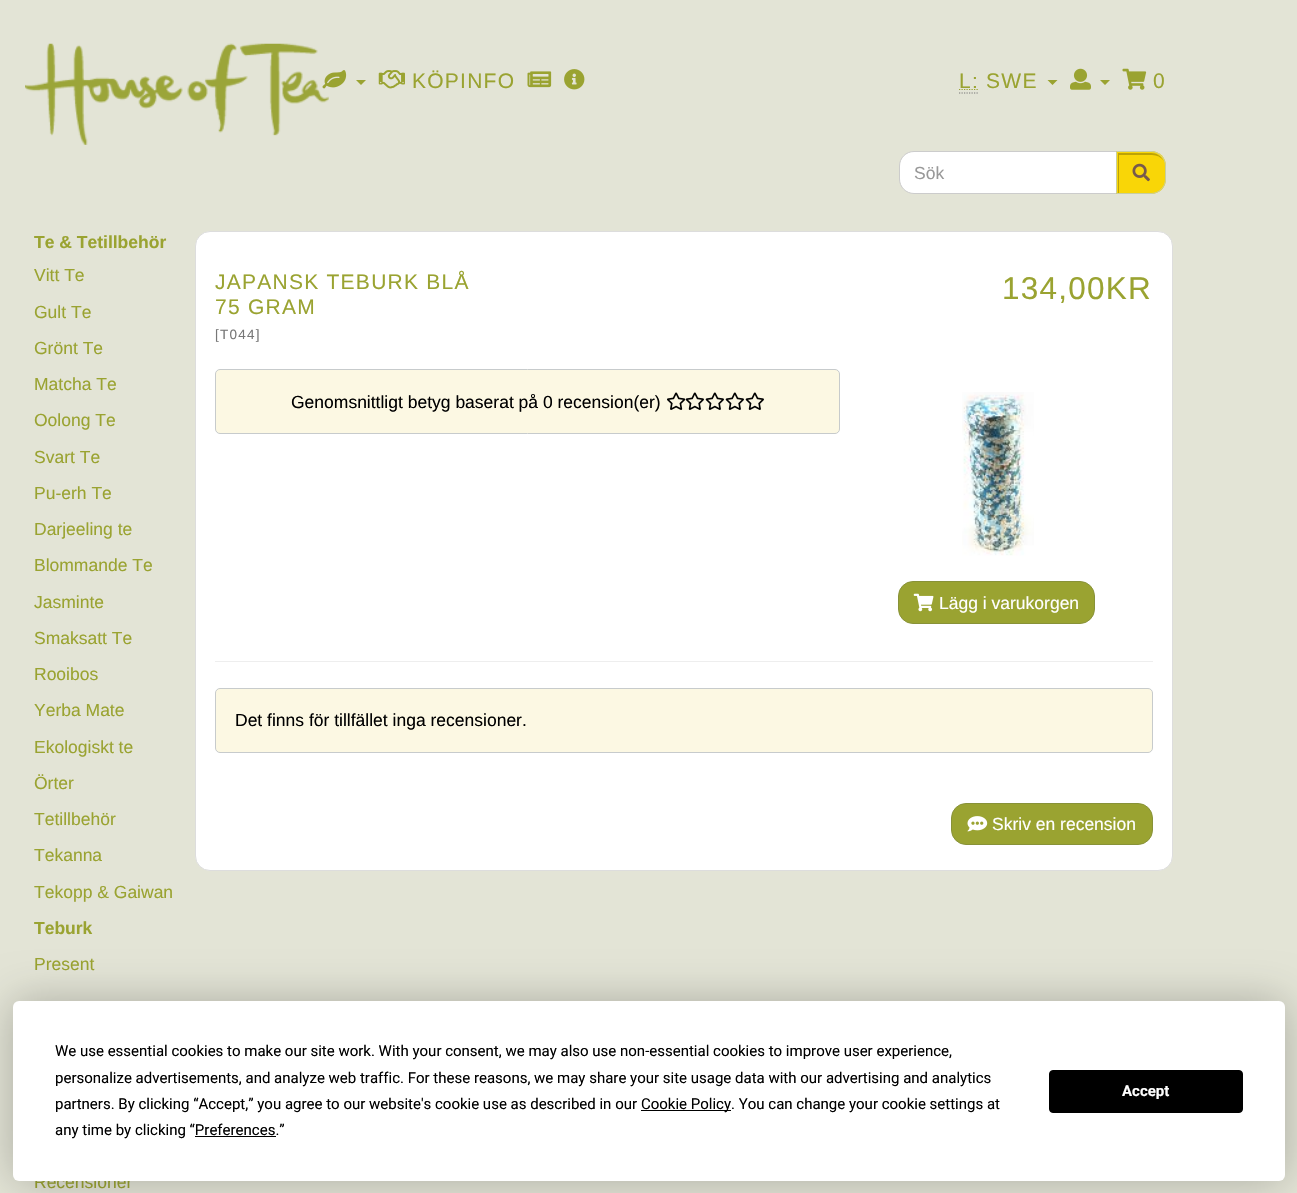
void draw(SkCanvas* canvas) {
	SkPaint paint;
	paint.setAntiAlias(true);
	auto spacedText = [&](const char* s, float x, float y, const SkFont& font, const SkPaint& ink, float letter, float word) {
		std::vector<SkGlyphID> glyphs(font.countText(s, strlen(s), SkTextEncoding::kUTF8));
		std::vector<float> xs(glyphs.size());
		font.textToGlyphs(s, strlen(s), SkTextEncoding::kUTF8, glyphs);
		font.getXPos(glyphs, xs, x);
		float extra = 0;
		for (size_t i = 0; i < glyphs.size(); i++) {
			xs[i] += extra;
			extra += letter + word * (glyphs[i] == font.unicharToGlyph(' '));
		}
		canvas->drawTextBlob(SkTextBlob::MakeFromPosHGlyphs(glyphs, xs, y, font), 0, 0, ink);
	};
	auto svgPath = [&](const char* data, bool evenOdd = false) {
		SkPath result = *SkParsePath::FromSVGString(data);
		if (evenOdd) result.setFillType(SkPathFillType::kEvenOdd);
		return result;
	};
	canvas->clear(0xffe3e4d6);
	canvas->drawImageRect(SkImages::DeferredFromEncodedData(SkData::MakeFromFileName("img1.png")), SkRect::MakeXYWH(25, 43, 304, 102), SkSamplingOptions());
	canvas->drawImageRect(SkImages::DeferredFromEncodedData(SkData::MakeFromFileName("img2.png")), SkRect::MakeXYWH(322, 70, 25, 19), SkSamplingOptions());
	paint.setColor(0xff9aa331);
	canvas->drawPath(svgPath("M356 80H366L361 85Z"), paint);
	canvas->drawImageRect(SkImages::DeferredFromEncodedData(SkData::MakeFromFileName("img3.png")), SkRect::MakeXYWH(378, 70, 27, 19), SkSamplingOptions());
	SkFont f1(fontMgr->matchFamilyStyle("Liberation Sans", SkFontStyle::Normal()), 21);
	f1.setSubpixel(true);
	spacedText("KÖPINFO", 412, 88, f1, paint, 1.25, 0);
	canvas->drawImageRect(SkImages::DeferredFromEncodedData(SkData::MakeFromFileName("img4.png")), SkRect::MakeXYWH(527, 71, 25, 17), SkSamplingOptions());
	canvas->drawImageRect(SkImages::DeferredFromEncodedData(SkData::MakeFromFileName("img5.png")), SkRect::MakeXYWH(564, 69, 21, 21), SkSamplingOptions());
	paint.setStroke(true);
	paint.setStrokeWidth(1.2);
	paint.setPathEffect(SkDashPathEffect::Make({{1.25f, 1.25f}}, 0));
	canvas->drawPath(svgPath("M959 89.5H979"), paint);
	paint.setPathEffect(nullptr);
	paint.setStroke(false);
	spacedText("L: SWE", 959, 88, f1, paint, 1.25, 0);
	paint.setStroke(true);
	paint.setColor(0xff777777);
	paint.setPathEffect(SkDashPathEffect::Make({{1.25f, 1.25f}}, 0));
	canvas->drawPath(svgPath("M959 93H979"), paint);
	paint.setPathEffect(nullptr);
	paint.setStroke(false);
	paint.setColor(0xff9aa331);
	canvas->drawPath(svgPath("M1047.5 80H1057.5L1052.5 85ZM1100 80H1110L1105 85Z"), paint);
	canvas->drawImageRect(SkImages::DeferredFromEncodedData(SkData::MakeFromFileName("img6.png")), SkRect::MakeXYWH(1070, 68, 21, 22), SkSamplingOptions());
	canvas->drawImageRect(SkImages::DeferredFromEncodedData(SkData::MakeFromFileName("img7.png")), SkRect::MakeXYWH(1122, 68, 25, 22), SkSamplingOptions());
	spacedText("0", 1153, 88, f1, paint, 1.25, 0);
	paint.setColor(0xffffffff);
	canvas->drawPath(svgPath("M914 151.5H1117.5V193.5H914C906 193.5 899.5 187 899.5 179V166C899.5 158 906 151.5 914 151.5Z"), paint);
	paint.setStroke(true);
	paint.setStrokeWidth(1);
	paint.setColor(0xffcccccc);
	canvas->drawPath(svgPath("M914 151.5H1117.5V193.5H914C906 193.5 899.5 187 899.5 179V166C899.5 158 906 151.5 914 151.5Z"), paint);
	SkFont f2(fontMgr->matchFamilyStyle("Liberation Sans", SkFontStyle::Normal()), 17.5);
	f2.setSubpixel(true);
	paint.setStroke(false);
	paint.setColor(0xff999999);
	canvas->drawString("Sök", 914, 179, f2, paint);
	paint.setColor(0xfff9d607);
	canvas->drawPath(svgPath("M1116 151H1151C1159.5 151 1166 157.5 1166 166V179C1166 187.5 1159.5 194 1151 194H1116Z"), paint);
	paint.setColor(0xffbda305);
	canvas->drawPath(svgPath("M1119 155H1152C1157 155 1161 157 1164 161C1161 156 1157 153 1151 153H1118V193H1119Z"), paint);
	paint.setStroke(true);
	paint.setColor(0xffc8ce9d);
	canvas->drawPath(svgPath("M1116.5 151.5H1151C1159 151.5 1165.5 158 1165.5 166V179C1165.5 187 1159 193.5 1151 193.5H1116.5Z"), paint);
	canvas->drawImageRect(SkImages::DeferredFromEncodedData(SkData::MakeFromFileName("img8.png")), SkRect::MakeXYWH(1132, 163, 18, 19), SkSamplingOptions());
	SkFont f3(fontMgr->matchFamilyStyle("Liberation Sans", SkFontStyle::Bold()), 17.5);
	f3.setSubpixel(true);
	paint.setStroke(false);
	paint.setColor(0xff9aa331);
	canvas->drawString("Te & Tetillbehör", 34, 248, f3, paint);
	canvas->drawString("Vitt Te", 34, 281, f2, paint);
	canvas->drawString("Gult Te", 34, 318, f2, paint);
	canvas->drawString("Grönt Te", 34, 354, f2, paint);
	canvas->drawString("Matcha Te", 34, 390, f2, paint);
	canvas->drawString("Oolong Te", 34, 426, f2, paint);
	canvas->drawString("Svart Te", 34, 463, f2, paint);
	canvas->drawString("Pu-erh Te", 34, 499, f2, paint);
	canvas->drawString("Darjeeling te", 34, 535, f2, paint);
	canvas->drawString("Blommande Te", 34, 571, f2, paint);
	canvas->drawString("Jasminte", 34, 608, f2, paint);
	canvas->drawString("Smaksatt Te", 34, 644, f2, paint);
	canvas->drawString("Rooibos", 34, 680, f2, paint);
	canvas->drawString("Yerba Mate", 34, 716, f2, paint);
	canvas->drawString("Ekologiskt te", 34, 753, f2, paint);
	canvas->drawString("Örter", 34, 789, f2, paint);
	canvas->drawString("Tetillbehör", 34, 825, f2, paint);
	canvas->drawString("Tekanna", 34, 861, f2, paint);
	canvas->drawString("Tekopp & Gaiwan", 34, 898, f2, paint);
	canvas->drawString("Teburk", 34, 934, f3, paint);
	canvas->drawString("Present", 34, 970, f2, paint);
	canvas->drawString("Recensioner", 34, 1188, f2, paint);
	paint.setColor(0xffffffff);
	canvas->drawRoundRect(SkRect::MakeXYWH(195.5, 231.5, 977, 639), 14.5, 14.5, paint);
	paint.setStroke(true);
	paint.setColor(0xffdddddd);
	canvas->drawRoundRect(SkRect::MakeXYWH(195.5, 231.5, 977, 639), 14.5, 14.5, paint);
	paint.setStroke(false);
	paint.setColor(0xff9aa331);
	spacedText("JAPANSK TEBURK BLÅ", 215, 289, f1, paint, 1.25, 0);
	spacedText("75 GRAM", 215, 314, f1, paint, 1.25, 0);
	SkFont f4(fontMgr->matchFamilyStyle("Liberation Sans", SkFontStyle::Normal()), 13.5);
	f4.setSubpixel(true);
	paint.setColor(0xff777777);
	spacedText("[T044]", 215, 339, f4, paint, 1.25, 0);
	SkFont f5(fontMgr->matchFamilyStyle("Liberation Sans", SkFontStyle::Normal()), 31.5);
	f5.setSubpixel(true);
	paint.setColor(0xff9aa331);
	spacedText("134,00KR", 1002, 299, f5, paint, 1.25, 0);
	paint.setColor(0xfffcf8e3);
	canvas->drawRoundRect(SkRect::MakeXYWH(215.5, 369.5, 624, 64), 4.5, 4.5, paint);
	paint.setStroke(true);
	paint.setColor(0xffc7cbcc);
	canvas->drawRoundRect(SkRect::MakeXYWH(215.5, 369.5, 624, 64), 4.5, 4.5, paint);
	paint.setStroke(false);
	paint.setColor(0xff000000);
	canvas->drawString("Genomsnittligt betyg baserat på 0 recension(er)", 291, 408, f2, paint);
	canvas->drawImageRect(SkImages::DeferredFromEncodedData(SkData::MakeFromFileName("img9.png")), SkRect::MakeXYWH(667, 392, 19, 18), SkSamplingOptions());
	canvas->drawImageRect(SkImages::DeferredFromEncodedData(SkData::MakeFromFileName("img10.png")), SkRect::MakeXYWH(685, 392, 19, 18), SkSamplingOptions());
	canvas->drawImageRect(SkImages::DeferredFromEncodedData(SkData::MakeFromFileName("img11.png")), SkRect::MakeXYWH(705, 392, 19, 18), SkSamplingOptions());
	canvas->drawImageRect(SkImages::DeferredFromEncodedData(SkData::MakeFromFileName("img11.png")), SkRect::MakeXYWH(725, 392, 19, 18), SkSamplingOptions());
	canvas->drawImageRect(SkImages::DeferredFromEncodedData(SkData::MakeFromFileName("img11.png")), SkRect::MakeXYWH(745, 392, 19, 18), SkSamplingOptions());
	canvas->drawImageRect(SkImages::DeferredFromEncodedData(SkData::MakeFromFileName("img12.png")), SkRect::MakeXYWH(962, 392, 72, 164), SkSamplingOptions());
	paint.setColor(0xff9aa331);
	canvas->drawRoundRect(SkRect::MakeXYWH(898.5, 581.5, 196, 42), 14.5, 14.5, paint);
	paint.setStroke(true);
	paint.setColor(0xff889238);
	canvas->drawRoundRect(SkRect::MakeXYWH(898.5, 581.5, 196, 42), 14.5, 14.5, paint);
	canvas->drawImageRect(SkImages::DeferredFromEncodedData(SkData::MakeFromFileName("img13.png")), SkRect::MakeXYWH(913, 593, 21, 19), SkSamplingOptions());
	paint.setStroke(false);
	paint.setColor(0xffffffff);
	canvas->drawString("Lägg i varukorgen", 939, 609, f2, paint);
	paint.setColor(0xffeeeeee);
	canvas->drawRect(SkRect::MakeXYWH(215, 661, 938, 1), paint);
	paint.setColor(0xfffcf8e3);
	canvas->drawRoundRect(SkRect::MakeXYWH(215.5, 688.5, 937, 64), 4.5, 4.5, paint);
	paint.setStroke(true);
	paint.setColor(0xffc7cbcc);
	canvas->drawRoundRect(SkRect::MakeXYWH(215.5, 688.5, 937, 64), 4.5, 4.5, paint);
	paint.setStroke(false);
	paint.setColor(0xff000000);
	canvas->drawString("Det finns för tillfället inga recensioner.", 235, 726, f2, paint);
	paint.setColor(0xff9aa331);
	canvas->drawRoundRect(SkRect::MakeXYWH(951.5, 803.5, 201, 41), 14.5, 14.5, paint);
	paint.setStroke(true);
	paint.setColor(0xff889238);
	canvas->drawRoundRect(SkRect::MakeXYWH(951.5, 803.5, 201, 41), 14.5, 14.5, paint);
	canvas->drawImageRect(SkImages::DeferredFromEncodedData(SkData::MakeFromFileName("img14.png")), SkRect::MakeXYWH(967, 816, 21, 16), SkSamplingOptions());
	paint.setStroke(false);
	paint.setColor(0xffffffff);
	canvas->drawString("Skriv en recension", 992, 830, f2, paint);
	paint.setColor(0x40000000);
	paint.setMaskFilter(SkMaskFilter::MakeBlur(kNormal_SkBlurStyle, 22));
	canvas->drawRoundRect(SkRect::MakeXYWH(13, 1001, 1272, 180), 6, 6, paint);
	paint.setMaskFilter(nullptr);
	paint.setColor(0xffffffff);
	canvas->drawRoundRect(SkRect::MakeXYWH(13, 1001, 1272, 180), 6, 6, paint);
	SkFont f6(fontMgr->matchFamilyStyle("Roboto", SkFontStyle::Normal()), 15);
	f6.setSubpixel(true);
	paint.setColor(0xff000000);
	canvas->drawString("We use essential cookies to make our site work. With your consent, we may also use non-essential cookies to improve user experience,", 55, 1056, f6, paint);
	canvas->drawString("personalize advertisements, and analyze web traffic. For these reasons, we may share your site usage data with our advertising and analytics", 55, 1083, f6, paint);
	canvas->drawString("partners. By clicking “Accept,” you agree to our website's cookie use as described in our", 55, 1109, f6, paint);
	canvas->drawRect(SkRect::MakeXYWH(641, 1110, 90, 1), paint);
	canvas->drawString("Cookie Policy. You can change your cookie settings at", 641, 1109, f6, paint);
	canvas->drawString("any time by clicking “Preferences.”", 55, 1135, f6, paint);
	canvas->drawRect(SkRect::MakeXYWH(195, 1136, 81, 1), paint);
	canvas->drawRoundRect(SkRect::MakeXYWH(1049.5, 1070.5, 193, 42), 3.5, 3.5, paint);
	paint.setStroke(true);
	canvas->drawRoundRect(SkRect::MakeXYWH(1049.5, 1070.5, 193, 42), 3.5, 3.5, paint);
	SkFont f7(fontMgr->matchFamilyStyle("Roboto", SkFontStyle::Bold()), 15);
	f7.setSubpixel(true);
	paint.setStroke(false);
	paint.setColor(0xffffffff);
	canvas->drawString("Accept", 1122, 1096, f7, paint);
}
